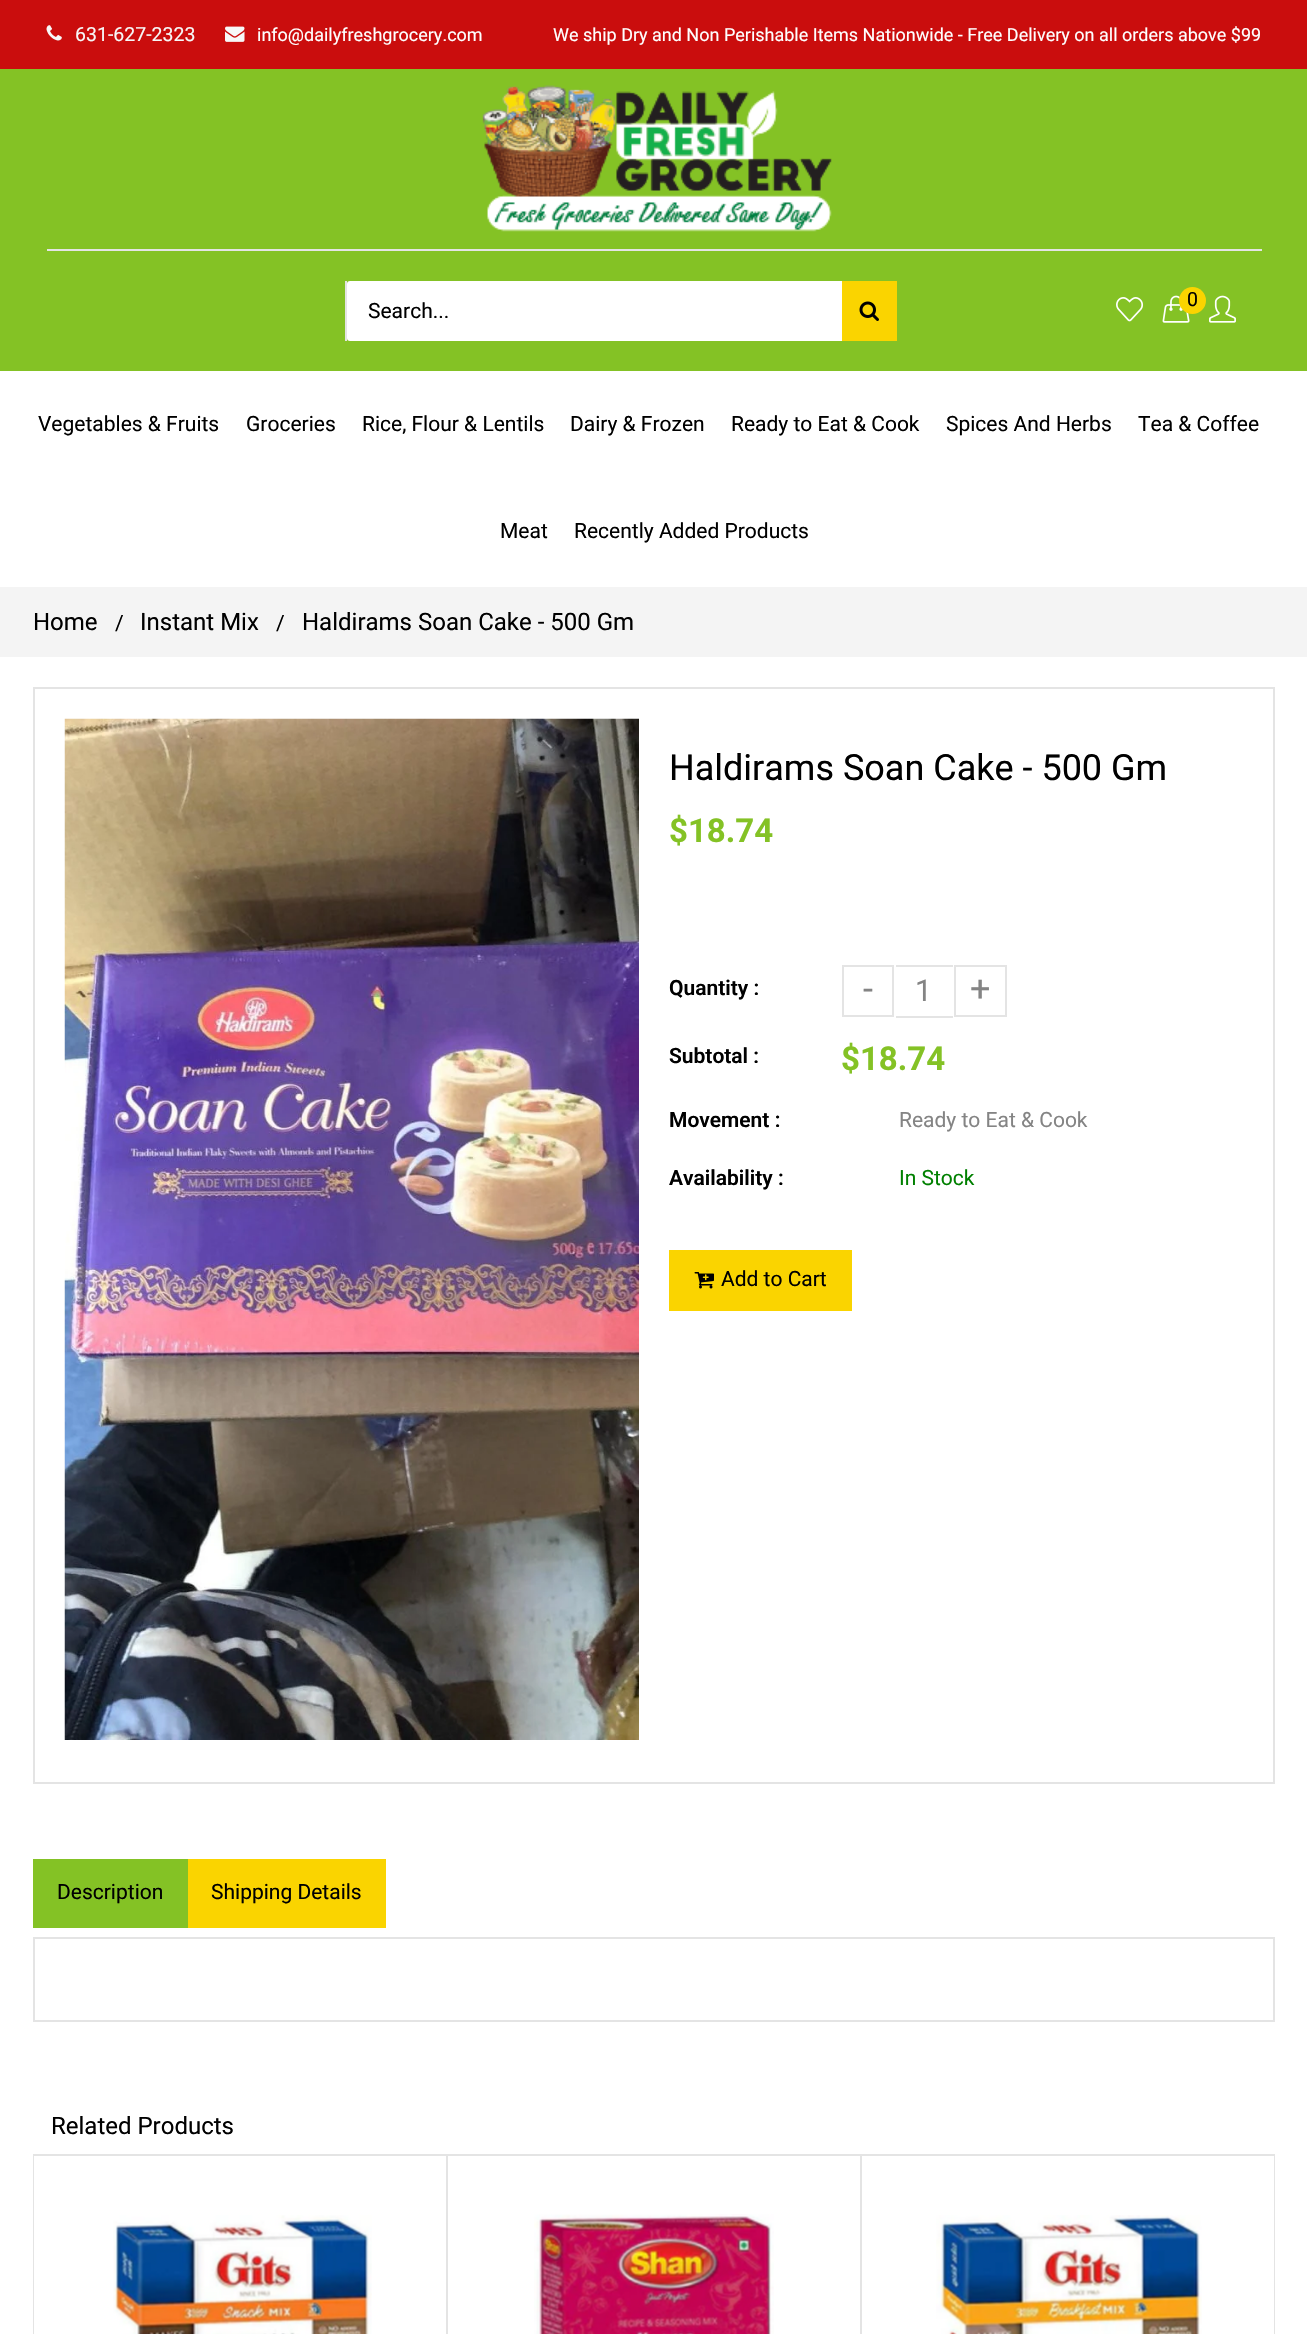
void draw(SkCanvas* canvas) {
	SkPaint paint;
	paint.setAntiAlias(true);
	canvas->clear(0xffffffff);
	paint.setColor(0xffca0d0d);
	canvas->drawRect(SkRect::MakeXYWH(0, 0, 1307, 69), paint);
	canvas->drawImageRect(SkImages::DeferredFromEncodedData(SkData::MakeFromFileName("img1.png")), SkRect::MakeXYWH(46, 25, 16, 16), SkSamplingOptions());
	SkFont f1(fontMgr->matchFamilyStyle("Roboto", SkFontStyle::Normal()), 19.5);
	f1.setSubpixel(true);
	paint.setColor(0xfff7f7f7);
	canvas->drawString("631-627-2323", 75, 41, f1, paint);
	canvas->drawImageRect(SkImages::DeferredFromEncodedData(SkData::MakeFromFileName("img2.png")), SkRect::MakeXYWH(225, 26, 20, 16), SkSamplingOptions());
	SkFont f2(fontMgr->matchFamilyStyle("Roboto", SkFontStyle::Normal()), 18);
	f2.setSubpixel(true);
	paint.setColor(0xffffffff);
	canvas->drawString("info@dailyfreshgrocery.com", 257, 41, f2, paint);
	canvas->drawString("We ship Dry and Non Perishable Items Nationwide - Free Delivery on all orders above $99", 553, 41, f2, paint);
	paint.setColor(0xff84c225);
	canvas->drawRect(SkRect::MakeXYWH(0, 69, 1307, 302), paint);
	paint.setColor(0xffe4e4e4);
	canvas->drawRect(SkRect::MakeXYWH(47, 249, 1215, 2), paint);
	canvas->drawImageRect(SkImages::DeferredFromEncodedData(SkData::MakeFromFileName("img3.png")), SkRect::MakeXYWH(482, 85, 350, 147), SkSamplingOptions());
	canvas->drawImageRect(SkImages::DeferredFromEncodedData(SkData::MakeFromFileName("img4.png")), SkRect::MakeXYWH(1116, 297, 28, 25), SkSamplingOptions());
	canvas->drawImageRect(SkImages::DeferredFromEncodedData(SkData::MakeFromFileName("img5.png")), SkRect::MakeXYWH(1162, 295, 28, 28), SkSamplingOptions());
	paint.setColor(0xfffad400);
	canvas->drawCircle(1192.5, 300.5, 13.5, paint);
	paint.setColor(0xff000000);
	canvas->drawString("0", 1187, 306, f1, paint);
	canvas->drawImageRect(SkImages::DeferredFromEncodedData(SkData::MakeFromFileName("img6.png")), SkRect::MakeXYWH(1209, 295, 27, 28), SkSamplingOptions());
	paint.setColor(0xffe4e4e4);
	canvas->drawRect(SkRect::MakeXYWH(345, 281, 2, 60), paint);
	paint.setColor(0xffffffff);
	canvas->drawRoundRect(SkRect::MakeXYWH(347, 281, 550, 60), 3, 3, paint);
	SkFont f3(fontMgr->matchFamilyStyle("Roboto", SkFontStyle::Normal()), 21);
	f3.setSubpixel(true);
	paint.setColor(0xff000000);
	canvas->drawString("Search...", 368, 318, f3, paint);
	paint.setColor(0xfffad400);
	canvas->drawRect(SkRect::MakeXYWH(842, 281, 55, 60), paint);
	canvas->drawImageRect(SkImages::DeferredFromEncodedData(SkData::MakeFromFileName("img7.png")), SkRect::MakeXYWH(859, 301, 20, 20), SkSamplingOptions());
	paint.setColor(0xff000000);
	canvas->drawString("Vegetables & Fruits", 38, 431, f3, paint);
	canvas->drawString("Groceries", 246, 431, f3, paint);
	canvas->drawString("Rice, Flour & Lentils", 362, 431, f3, paint);
	canvas->drawString("Dairy & Frozen", 570, 431, f3, paint);
	canvas->drawString("Ready to Eat & Cook", 731, 431, f3, paint);
	canvas->drawString("Spices And Herbs", 946, 431, f3, paint);
	canvas->drawString("Tea & Coffee", 1138, 431, f3, paint);
	canvas->drawString("Meat", 500, 538, f3, paint);
	canvas->drawString("Recently Added Products", 574, 538, f3, paint);
	paint.setColor(0xfff4f4f4);
	canvas->drawRect(SkRect::MakeXYWH(0, 587, 1307, 70), paint);
	SkFont f4(fontMgr->matchFamilyStyle("Roboto", SkFontStyle::Normal()), 24);
	f4.setSubpixel(true);
	paint.setColor(0xff000000);
	canvas->drawString("Home", 33, 630, f4, paint);
	canvas->drawString("/", 115, 630, f3, paint);
	canvas->drawString("Instant Mix", 140, 630, f4, paint);
	canvas->drawString("/", 276, 630, f3, paint);
	canvas->drawString("Haldirams Soan Cake - 500 Gm", 302, 630, f4, paint);
	paint.setStroke(true);
	paint.setStrokeWidth(2);
	paint.setColor(0xffe4e4e4);
	canvas->drawRect(SkRect::MakeXYWH(34, 688, 1240, 1095), paint);
	canvas->drawImageRect(SkImages::DeferredFromEncodedData(SkData::MakeFromFileName("img8.png")), SkRect::MakeXYWH(64, 718, 575, 1022), SkSamplingOptions());
	SkFont f5(fontMgr->matchFamilyStyle("Roboto", SkFontStyle::Normal()), 36);
	f5.setSubpixel(true);
	paint.setStroke(false);
	paint.setColor(0xff000000);
	canvas->drawString("Haldirams Soan Cake - 500 Gm", 669, 780, f5, paint);
	SkFont f6(fontMgr->matchFamilyStyle("Roboto", SkFontStyle::Bold()), 33);
	f6.setSubpixel(true);
	paint.setColor(0xff84c225);
	canvas->drawString("$18.74", 669, 842, f6, paint);
	SkFont f7(fontMgr->matchFamilyStyle("Roboto", SkFontStyle(600, SkFontStyle::kNormal_Width, SkFontStyle::kUpright_Slant)), 21);
	f7.setSubpixel(true);
	paint.setColor(0xff000000);
	canvas->drawString("Quantity :", 669, 995, f7, paint);
	paint.setStroke(true);
	paint.setColor(0xffe4e4e4);
	canvas->drawRect(SkRect::MakeXYWH(843, 966, 50, 50), paint);
	paint.setStroke(false);
	paint.setColor(0xff848484);
	canvas->drawString("-", 863, 1001, f5, paint);
	paint.setColor(0xffe4e4e4);
	canvas->drawRect(SkRect::MakeXYWH(896, 965, 57, 2), paint);
	canvas->drawRect(SkRect::MakeXYWH(896, 1016, 57, 2), paint);
	SkFont f8(fontMgr->matchFamilyStyle("Roboto", SkFontStyle::Normal()), 30);
	f8.setSubpixel(true);
	paint.setColor(0xff848484);
	canvas->drawString("1", 915, 1001, f8, paint);
	paint.setStroke(true);
	paint.setColor(0xffe4e4e4);
	canvas->drawRect(SkRect::MakeXYWH(955, 966, 51, 50), paint);
	paint.setStroke(false);
	paint.setColor(0xff848484);
	canvas->drawString("+", 970, 1001, f5, paint);
	paint.setColor(0xff000000);
	canvas->drawString("Subtotal :", 669, 1063, f7, paint);
	paint.setColor(0xff84c225);
	canvas->drawString("$18.74", 841, 1070, f6, paint);
	paint.setColor(0xff000000);
	canvas->drawString("Movement :", 669, 1127, f7, paint);
	paint.setColor(0xff848484);
	canvas->drawString("Ready to Eat & Cook", 899, 1127, f3, paint);
	paint.setColor(0xff000000);
	canvas->drawString("Availability :", 669, 1185, f7, paint);
	paint.setColor(0xff008000);
	canvas->drawString("In Stock", 899, 1185, f3, paint);
	paint.setColor(0xfffad400);
	canvas->drawRect(SkRect::MakeXYWH(669, 1250, 183, 61), paint);
	canvas->drawImageRect(SkImages::DeferredFromEncodedData(SkData::MakeFromFileName("img9.png")), SkRect::MakeXYWH(694, 1272, 20, 17), SkSamplingOptions());
	paint.setColor(0xff000000);
	canvas->drawString("Add to Cart", 721, 1286, f3, paint);
	paint.setColor(0xff84c225);
	canvas->drawRect(SkRect::MakeXYWH(33, 1859, 155, 69), paint);
	paint.setColor(0xff000000);
	canvas->drawString("Description", 57, 1899, f3, paint);
	paint.setColor(0xfffad400);
	canvas->drawRect(SkRect::MakeXYWH(188, 1859, 198, 69), paint);
	paint.setColor(0xff000000);
	canvas->drawString("Shipping Details", 211, 1899, f3, paint);
	paint.setStroke(true);
	paint.setColor(0xffe4e4e4);
	canvas->drawRect(SkRect::MakeXYWH(34, 1938, 1240, 83), paint);
	paint.setStroke(false);
	paint.setColor(0xff000000);
	canvas->drawString("Related Products", 51, 2134, f4, paint);
	paint.setColor(0xffe4e4e4);
	canvas->drawRect(SkRect::MakeXYWH(33, 2154, 1, 180), paint);
	canvas->drawRect(SkRect::MakeXYWH(33, 2154, 414, 2), paint);
	canvas->drawImageRect(SkImages::DeferredFromEncodedData(SkData::MakeFromFileName("img10.png")), SkRect::MakeXYWH(113, 2215, 259, 119), SkSamplingOptions());
	canvas->drawRect(SkRect::MakeXYWH(446, 2154, 2, 180), paint);
	canvas->drawRect(SkRect::MakeXYWH(447, 2154, 414, 2), paint);
	canvas->drawImageRect(SkImages::DeferredFromEncodedData(SkData::MakeFromFileName("img11.png")), SkRect::MakeXYWH(534, 2214, 240, 120), SkSamplingOptions());
	canvas->drawRect(SkRect::MakeXYWH(860, 2154, 2, 180), paint);
	canvas->drawRect(SkRect::MakeXYWH(861, 2154, 414, 2), paint);
	canvas->drawImageRect(SkImages::DeferredFromEncodedData(SkData::MakeFromFileName("img12.png")), SkRect::MakeXYWH(936, 2215, 266, 119), SkSamplingOptions());
	canvas->drawRect(SkRect::MakeXYWH(1274, 2154, 1, 180), paint);
}
